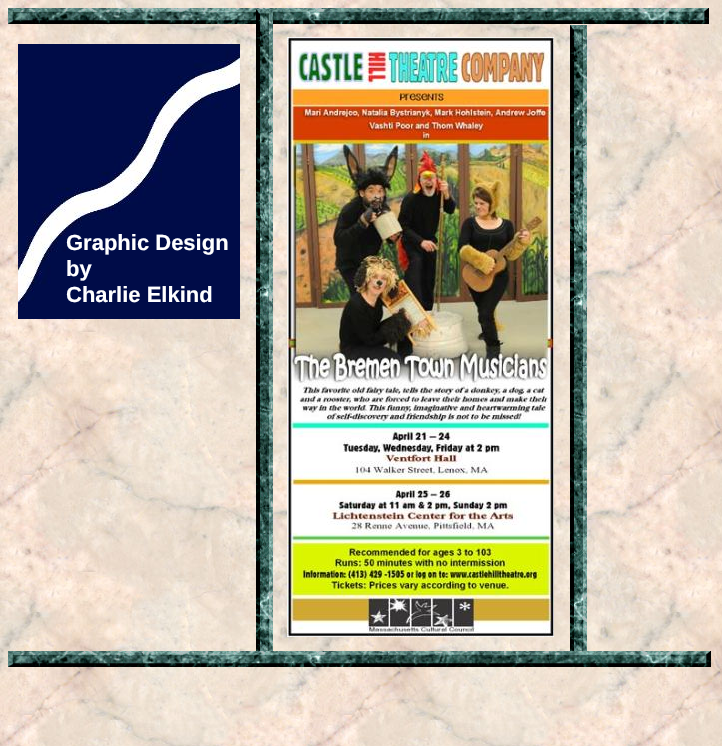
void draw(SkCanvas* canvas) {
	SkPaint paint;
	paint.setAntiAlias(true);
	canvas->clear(0xffffffff);
	canvas->drawImageRect(SkImages::DeferredFromEncodedData(SkData::MakeFromFileName("img1.png")), SkRect::MakeXYWH(0, 0, 722, 746), SkSamplingOptions());
	canvas->drawImageRect(SkImages::DeferredFromEncodedData(SkData::MakeFromFileName("img2.png")), SkRect::MakeXYWH(8, 8, 701, 16), SkSamplingOptions());
	canvas->drawImageRect(SkImages::DeferredFromEncodedData(SkData::MakeFromFileName("img3.png")), SkRect::MakeXYWH(18, 44, 222, 275), SkSamplingOptions());
	canvas->drawImageRect(SkImages::DeferredFromEncodedData(SkData::MakeFromFileName("img4.png")), SkRect::MakeXYWH(256, 9, 17, 642), SkSamplingOptions());
	canvas->drawImageRect(SkImages::DeferredFromEncodedData(SkData::MakeFromFileName("img5.png")), SkRect::MakeXYWH(287, 37, 267, 600), SkSamplingOptions());
	canvas->drawImageRect(SkImages::DeferredFromEncodedData(SkData::MakeFromFileName("img6.png")), SkRect::MakeXYWH(570, 25, 17, 626), SkSamplingOptions());
	SkFont f1(fontMgr->matchFamilyStyle("Liberation Sans", SkFontStyle::Bold()), 22);
	f1.setSubpixel(true);
	paint.setColor(0xffffffff);
	canvas->drawString("Graphic Design", 66, 250, f1, paint);
	canvas->drawString("by", 66, 276, f1, paint);
	canvas->drawString("Charlie Elkind", 66, 302, f1, paint);
	canvas->drawImageRect(SkImages::DeferredFromEncodedData(SkData::MakeFromFileName("img7.png")), SkRect::MakeXYWH(8, 651, 703, 16), SkSamplingOptions());
}
